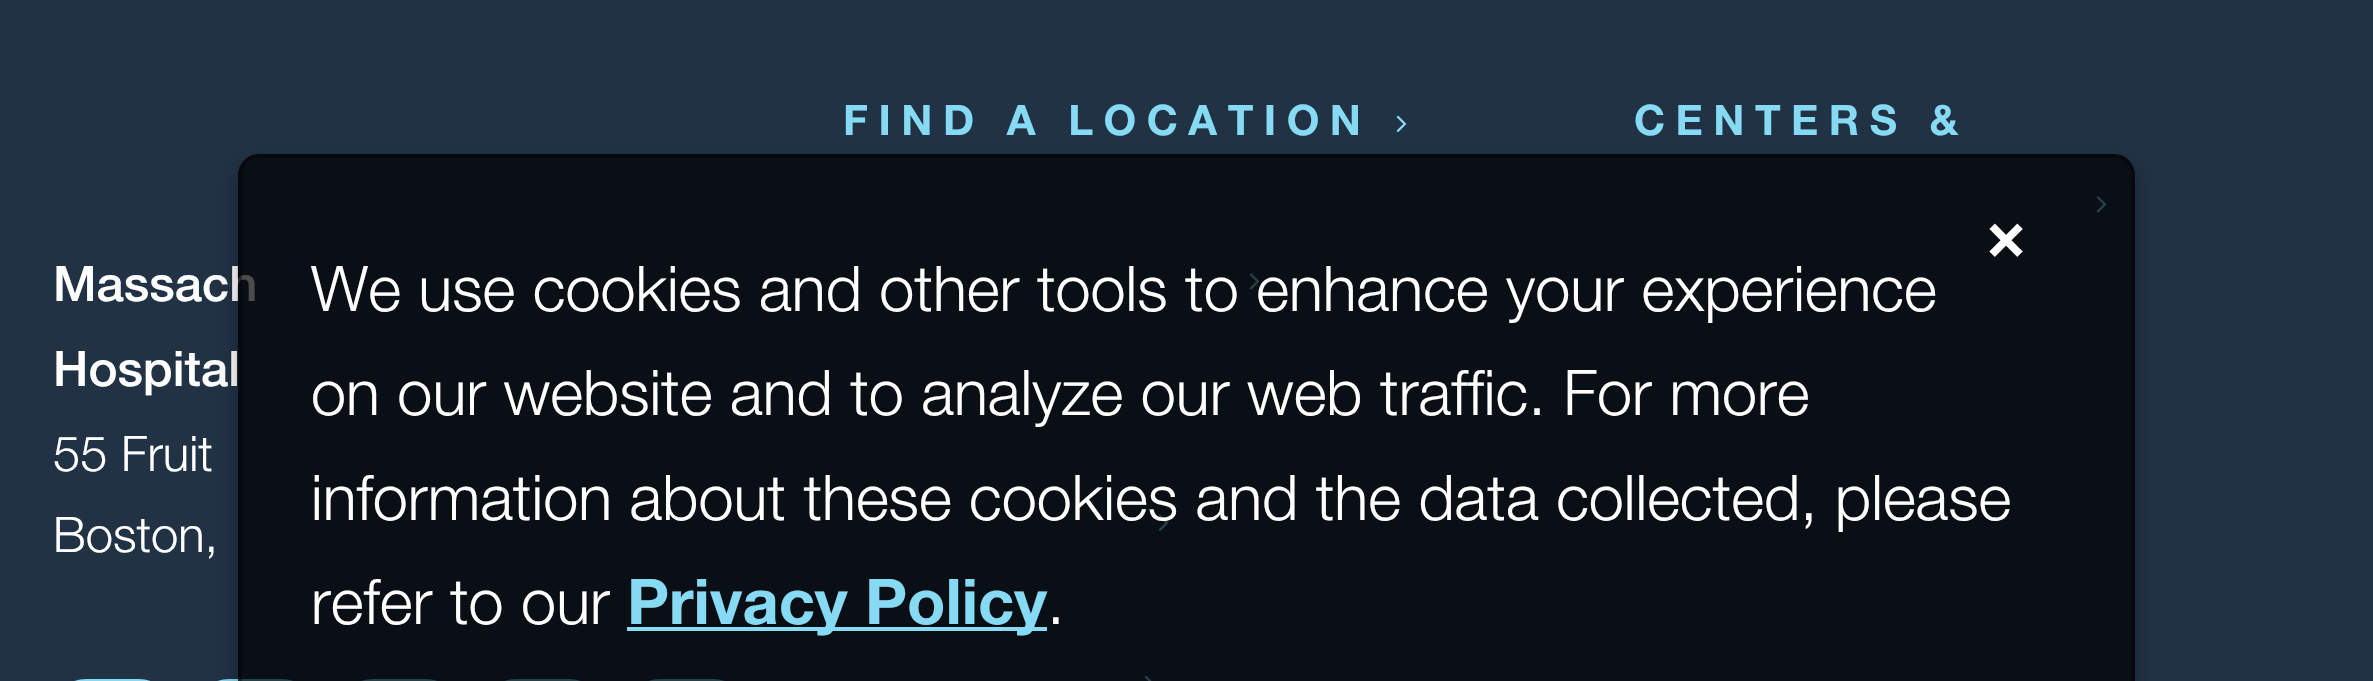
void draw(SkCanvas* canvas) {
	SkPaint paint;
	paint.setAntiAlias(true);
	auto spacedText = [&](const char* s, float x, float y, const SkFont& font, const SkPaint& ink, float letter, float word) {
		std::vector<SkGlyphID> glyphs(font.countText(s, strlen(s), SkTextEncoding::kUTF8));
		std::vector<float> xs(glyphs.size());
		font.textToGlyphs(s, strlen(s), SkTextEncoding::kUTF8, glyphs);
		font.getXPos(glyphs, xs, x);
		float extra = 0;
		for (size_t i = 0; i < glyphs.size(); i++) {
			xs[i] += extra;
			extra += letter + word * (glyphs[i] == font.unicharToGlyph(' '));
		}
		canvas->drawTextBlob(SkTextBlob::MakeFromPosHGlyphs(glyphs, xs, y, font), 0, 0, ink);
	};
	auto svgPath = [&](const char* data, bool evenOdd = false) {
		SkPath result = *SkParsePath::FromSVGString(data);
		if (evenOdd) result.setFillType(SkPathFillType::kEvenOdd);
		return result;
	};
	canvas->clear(0xff213245);
	SkFont f1(fontMgr->matchFamilyStyle("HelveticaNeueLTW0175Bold", SkFontStyle::Bold()), 42);
	f1.setSubpixel(true);
	paint.setColor(0xff86daf3);
	spacedText("FIND A LOCATION", 843, 135, f1, paint, 10.5, 0);
	canvas->drawImageRect(SkImages::DeferredFromEncodedData(SkData::MakeFromFileName("img1.png")), SkRect::MakeXYWH(1396, 115, 11, 17), SkSamplingOptions());
	canvas->drawImageRect(SkImages::DeferredFromEncodedData(SkData::MakeFromFileName("img2.png")), SkRect::MakeXYWH(1249, 273, 11, 17), SkSamplingOptions());
	canvas->drawImageRect(SkImages::DeferredFromEncodedData(SkData::MakeFromFileName("img1.png")), SkRect::MakeXYWH(1158, 514, 11, 17), SkSamplingOptions());
	canvas->drawImageRect(SkImages::DeferredFromEncodedData(SkData::MakeFromFileName("img3.png")), SkRect::MakeXYWH(1144, 675, 8, 6), SkSamplingOptions());
	spacedText("CENTERS &", 1634, 135, f1, paint, 10.5, 0);
	canvas->drawImageRect(SkImages::DeferredFromEncodedData(SkData::MakeFromFileName("img2.png")), SkRect::MakeXYWH(2096, 196, 11, 17), SkSamplingOptions());
	SkFont f2(fontMgr->matchFamilyStyle("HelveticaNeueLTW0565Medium", SkFontStyle(500, SkFontStyle::kNormal_Width, SkFontStyle::kUpright_Slant)), 49);
	f2.setSubpixel(true);
	paint.setColor(0xffffffff);
	canvas->drawString("Massach", 53, 301, f2, paint);
	canvas->drawString("Hospital", 53, 386, f2, paint);
	SkFont f3(fontMgr->matchFamilyStyle("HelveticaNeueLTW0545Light", SkFontStyle(300, SkFontStyle::kNormal_Width, SkFontStyle::kUpright_Slant)), 49);
	f3.setSubpixel(true);
	canvas->drawString("55 Fruit", 53, 471, f3, paint);
	canvas->drawString("Boston,", 53, 552, f3, paint);
	paint.setStroke(true);
	paint.setStrokeWidth(4);
	paint.setColor(0xff86daf3);
	canvas->drawRoundRect(SkRect::MakeXYWH(55, 681, 115, 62), 57.5, 57.5, paint);
	canvas->drawRoundRect(SkRect::MakeXYWH(198, 681, 115, 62), 57.5, 57.5, paint);
	canvas->drawRoundRect(SkRect::MakeXYWH(342, 681, 115, 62), 57.5, 57.5, paint);
	canvas->drawRoundRect(SkRect::MakeXYWH(485, 681, 115, 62), 57.5, 57.5, paint);
	canvas->drawRoundRect(SkRect::MakeXYWH(629, 681, 115, 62), 57.5, 57.5, paint);
	canvas->save();
	canvas->clipPath(svgPath("M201 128H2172V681H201ZM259 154H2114C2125.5 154 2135 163.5 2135 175V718C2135 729.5 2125.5 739 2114 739H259C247.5 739 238 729.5 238 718V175C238 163.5 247.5 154 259 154Z", true), true);
	paint.setStroke(false);
	paint.setColor(0x4d000000);
	paint.setMaskFilter(SkMaskFilter::MakeBlur(kNormal_SkBlurStyle, 12));
	canvas->drawRoundRect(SkRect::MakeXYWH(238, 165, 1897, 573), 21, 21, paint);
	paint.setMaskFilter(nullptr);
	canvas->restore();
	paint.setColor(0xb3000000);
	canvas->drawRoundRect(SkRect::MakeXYWH(238, 154, 1897, 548), 21, 21, paint);
	paint.setStroke(true);
	paint.setColor(0x66000000);
	canvas->drawRoundRect(SkRect::MakeXYWH(240, 156, 1893, 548), 19, 19, paint);
	SkFont f4(fontMgr->matchFamilyStyle("HelveticaNeueLTW0175Bold", SkFontStyle::Bold()), 70);
	f4.setSubpixel(true);
	paint.setStroke(false);
	paint.setColor(0xffffffff);
	canvas->drawString("×", 1985, 258, f4, paint);
	SkFont f5(fontMgr->matchFamilyStyle("HelveticaNeueLTW0545Light", SkFontStyle(300, SkFontStyle::kNormal_Width, SkFontStyle::kUpright_Slant)), 63);
	f5.setSubpixel(true);
	canvas->drawString("We use cookies and other tools to enhance your experience", 311, 311, f5, paint);
	canvas->drawString("on our website and to analyze our web traffic. For more", 311, 415, f5, paint);
	canvas->drawString("information about these cookies and the data collected, please", 311, 520, f5, paint);
	canvas->drawString("refer to our", 311, 624, f5, paint);
	paint.setColor(0xff86daf3);
	canvas->drawRect(SkRect::MakeXYWH(627, 627, 420, 4), paint);
	SkFont f6(fontMgr->matchFamilyStyle("HelveticaNeueLTW0175Bold", SkFontStyle::Bold()), 63);
	f6.setSubpixel(true);
	canvas->drawString("Privacy Policy", 627, 624, f6, paint);
	paint.setColor(0xffffffff);
	canvas->drawString(".", 1047, 624, f5, paint);
}
